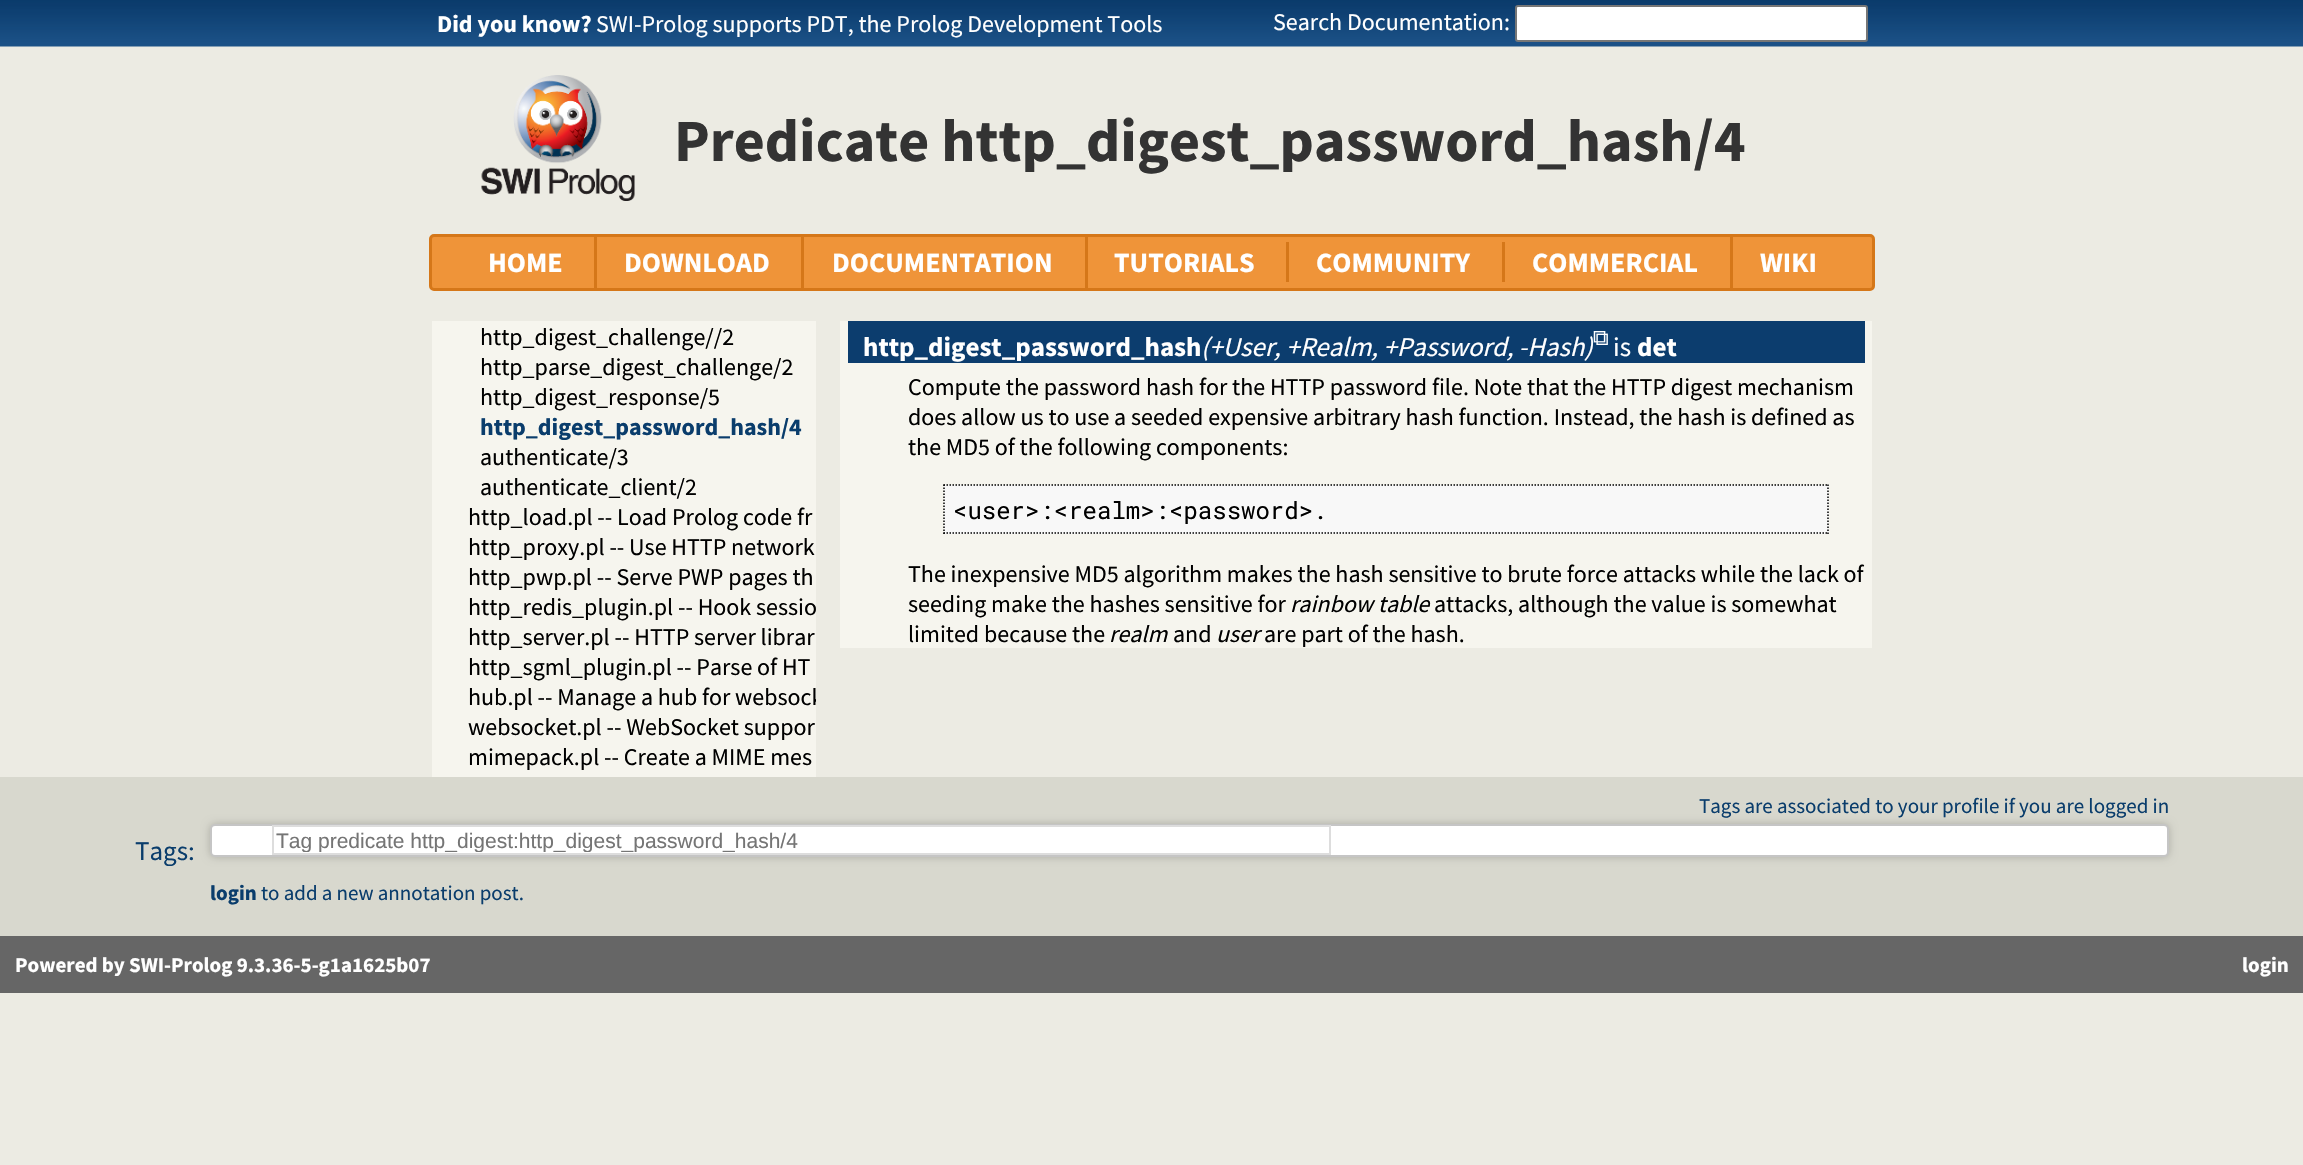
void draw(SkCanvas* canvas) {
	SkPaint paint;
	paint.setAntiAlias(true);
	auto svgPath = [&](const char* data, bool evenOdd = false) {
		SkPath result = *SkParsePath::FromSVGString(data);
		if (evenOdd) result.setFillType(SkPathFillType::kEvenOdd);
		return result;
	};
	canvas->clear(0xffecebe3);
	canvas->drawImageRect(SkImages::DeferredFromEncodedData(SkData::MakeFromFileName("img1.png")), SkRect::MakeXYWH(0, 0, 2303, 47), SkSamplingOptions());
	SkFont f1(fontMgr->matchFamilyStyle("Source Sans Pro", SkFontStyle::Bold()), 24);
	f1.setSubpixel(true);
	paint.setColor(0xffffffff);
	canvas->drawString("Did you know?", 437, 32, f1, paint);
	SkFont f2(fontMgr->matchFamilyStyle("Source Sans Pro", SkFontStyle::Normal()), 24);
	f2.setSubpixel(true);
	canvas->drawString("SWI-Prolog supports PDT, the Prolog Development Tools", 596, 32, f2, paint);
	canvas->drawString("Search Documentation:", 1273, 30, f2, paint);
	canvas->drawRoundRect(SkRect::MakeXYWH(1516, 6, 351, 35), 2, 2, paint);
	paint.setStroke(true);
	paint.setStrokeWidth(2);
	paint.setColor(0xff767676);
	canvas->drawRoundRect(SkRect::MakeXYWH(1516, 6, 351, 35), 2, 2, paint);
	canvas->drawImageRect(SkImages::DeferredFromEncodedData(SkData::MakeFromFileName("img2.png")), SkRect::MakeXYWH(481, 75, 154, 126), SkSamplingOptions());
	SkFont f3(fontMgr->matchFamilyStyle("Source Sans Pro", SkFontStyle::Bold()), 60);
	f3.setSubpixel(true);
	paint.setStroke(false);
	paint.setColor(0xff333333);
	canvas->drawString("Predicate http_digest_password_hash/4", 674, 161, f3, paint);
	paint.setColor(0xffef9439);
	canvas->drawRoundRect(SkRect::MakeXYWH(430.5, 235.5, 1443, 54), 3.5, 3.5, paint);
	paint.setStroke(true);
	paint.setStrokeWidth(3);
	paint.setColor(0xffd57719);
	canvas->drawRoundRect(SkRect::MakeXYWH(430.5, 235.5, 1443, 54), 3.5, 3.5, paint);
	SkFont f4(fontMgr->matchFamilyStyle("Source Sans Pro", SkFontStyle::Bold()), 28);
	f4.setSubpixel(true);
	paint.setStroke(false);
	paint.setColor(0xffffffff);
	canvas->drawString("HOME", 488, 272, f4, paint);
	paint.setColor(0xffd57719);
	canvas->drawRect(SkRect::MakeXYWH(594, 237, 3, 51), paint);
	paint.setColor(0xffffffff);
	canvas->drawString("DOWNLOAD", 624, 272, f4, paint);
	paint.setColor(0xffd57719);
	canvas->drawRect(SkRect::MakeXYWH(801, 237, 3, 51), paint);
	paint.setColor(0xffffffff);
	canvas->drawString("DOCUMENTATION", 832, 272, f4, paint);
	paint.setColor(0xffd57719);
	canvas->drawRect(SkRect::MakeXYWH(1085, 237, 3, 51), paint);
	paint.setColor(0xffffffff);
	canvas->drawString("TUTORIALS", 1114, 272, f4, paint);
	paint.setColor(0xffd57719);
	canvas->drawRect(SkRect::MakeXYWH(1286, 242, 3, 40), paint);
	paint.setColor(0xffffffff);
	canvas->drawString("COMMUNITY", 1316, 272, f4, paint);
	paint.setColor(0xffd57719);
	canvas->drawRect(SkRect::MakeXYWH(1502, 242, 3, 40), paint);
	paint.setColor(0xffffffff);
	canvas->drawString("COMMERCIAL", 1532, 272, f4, paint);
	paint.setColor(0xffd57719);
	canvas->drawRect(SkRect::MakeXYWH(1730, 237, 3, 51), paint);
	paint.setColor(0xffffffff);
	canvas->drawString("WIKI", 1760, 272, f4, paint);
	paint.setColor(0xfff6f5ee);
	canvas->drawRect(SkRect::MakeXYWH(432, 321, 384, 456), paint);
	paint.setColor(0xff000000);
	canvas->drawString("http_digest_challenge//2", 480, 345, f2, paint);
	canvas->drawString("http_parse_digest_challenge/2", 480, 375, f2, paint);
	canvas->drawString("http_digest_response/5", 480, 405, f2, paint);
	paint.setColor(0xff0a3d6c);
	canvas->drawString("http_digest_password_hash/4", 480, 435, f1, paint);
	paint.setColor(0xff000000);
	canvas->drawString("authenticate/3", 480, 465, f2, paint);
	canvas->drawString("authenticate_client/2", 480, 495, f2, paint);
	canvas->drawString("http_load.pl -- Load Prolog code fr", 468, 525, f2, paint);
	canvas->drawString("http_proxy.pl -- Use HTTP network", 468, 555, f2, paint);
	canvas->drawString("http_pwp.pl -- Serve PWP pages th", 468, 585, f2, paint);
	canvas->drawString("http_redis_plugin.pl -- Hook sessio", 468, 615, f2, paint);
	canvas->drawString("http_server.pl -- HTTP server librar", 468, 645, f2, paint);
	canvas->drawString("http_sgml_plugin.pl -- Parse of HT", 468, 675, f2, paint);
	canvas->save();
	canvas->clipRect(SkRect::MakeXYWH(432, 321, 384, 450));
	canvas->drawString("hub.pl -- Manage a hub for websock", 468, 705, f2, paint);
	canvas->restore();
	canvas->drawString("websocket.pl -- WebSocket suppor", 468, 735, f2, paint);
	canvas->drawString("mimepack.pl -- Create a MIME mes", 468, 765, f2, paint);
	paint.setColor(0xfff6f5ee);
	canvas->drawRect(SkRect::MakeXYWH(840, 321, 1032, 327), paint);
	paint.setColor(0xff0c3d6e);
	canvas->drawRect(SkRect::MakeXYWH(848, 321, 1017, 42), paint);
	SkFont f5(fontMgr->matchFamilyStyle("Source Sans Pro", SkFontStyle::Bold()), 27);
	f5.setSubpixel(true);
	paint.setColor(0xffffffff);
	canvas->drawString("http_digest_password_hash", 863, 356, f5, paint);
	SkFont f6(fontMgr->matchFamilyStyle("Source Sans Pro", SkFontStyle::Italic()), 27);
	f6.setSubpixel(true);
	canvas->drawString("(+User, +Realm, +Password, -Hash)", 1201, 356, f6, paint);
	SkFont f7(fontMgr->matchFamilyStyle("FreeSerif", SkFontStyle::Normal()), 22);
	f7.setSubpixel(true);
	canvas->drawString("⧉", 1593, 345, f7, paint);
	SkFont f8(fontMgr->matchFamilyStyle("Source Sans Pro", SkFontStyle::Normal()), 27);
	f8.setSubpixel(true);
	canvas->drawString("is", 1613, 356, f8, paint);
	canvas->drawString("det", 1637, 356, f5, paint);
	paint.setColor(0xff000000);
	canvas->drawString("Compute the password hash for the HTTP password file. Note that the HTTP digest mechanism", 908, 395, f2, paint);
	canvas->drawString("does allow us to use a seeded expensive arbitrary hash function. Instead, the hash is defined as", 908, 425, f2, paint);
	canvas->drawString("the MD5 of the following components:", 908, 455, f2, paint);
	paint.setColor(0xfff8f8f8);
	canvas->drawRect(SkRect::MakeXYWH(944, 485, 885, 49), paint);
	paint.setStroke(true);
	paint.setStrokeWidth(1.5);
	paint.setColor(0xff000000);
	paint.setPathEffect(SkDashPathEffect::Make({{1.5f, 1.5f}}, 0));
	canvas->drawPath(svgPath("M943.5 485H1828.5"), paint);
	paint.setPathEffect(nullptr);
	paint.setPathEffect(SkDashPathEffect::Make({{1.5f, 1.5f}}, 0));
	canvas->drawPath(svgPath("M1828 484.5V534"), paint);
	paint.setPathEffect(nullptr);
	paint.setPathEffect(SkDashPathEffect::Make({{1.5f, 1.5f}}, 0));
	canvas->drawPath(svgPath("M943.5 533H1828.5"), paint);
	paint.setPathEffect(nullptr);
	paint.setPathEffect(SkDashPathEffect::Make({{1.5f, 1.5f}}, 0));
	canvas->drawPath(svgPath("M944 484.5V534"), paint);
	paint.setPathEffect(nullptr);
	SkFont f9(fontMgr->matchFamilyStyle("Roboto Mono", SkFontStyle::Normal()), 24);
	f9.setSubpixel(true);
	paint.setStroke(false);
	canvas->drawString("<user>:<realm>:<password>.", 953, 519, f9, paint);
	canvas->drawString("The inexpensive MD5 algorithm makes the hash sensitive to brute force attacks while the lack of", 908, 582, f2, paint);
	canvas->drawString("seeding make the hashes sensitive for", 908, 612, f2, paint);
	SkFont f10(fontMgr->matchFamilyStyle("Source Sans Pro", SkFontStyle::Italic()), 24);
	f10.setSubpixel(true);
	canvas->drawString("rainbow table", 1290, 612, f10, paint);
	canvas->drawString("attacks, although the value is somewhat", 1434, 612, f2, paint);
	canvas->drawString("limited because the", 908, 642, f2, paint);
	canvas->drawString("realm", 1109, 642, f10, paint);
	canvas->drawString("and", 1173, 642, f2, paint);
	canvas->drawString("user", 1216, 642, f10, paint);
	canvas->drawString("are part of the hash.", 1264, 642, f2, paint);
	paint.setColor(0xffd8d8ce);
	canvas->drawRect(SkRect::MakeXYWH(0, 777, 2303, 159), paint);
	paint.setColor(0x33000000);
	paint.setMaskFilter(SkMaskFilter::MakeBlur(kNormal_SkBlurStyle, 4));
	canvas->drawRoundRect(SkRect::MakeXYWH(210, 824, 1959, 33), 5, 5, paint);
	paint.setMaskFilter(nullptr);
	SkFont f11(fontMgr->matchFamilyStyle("Source Sans Pro", SkFontStyle::Normal()), 21);
	f11.setSubpixel(true);
	paint.setColor(0xff0a3d6c);
	canvas->drawString("Tags are associated to your profile if you are logged in", 1699, 813, f11, paint);
	canvas->drawString("Tags:", 135, 860, f8, paint);
	paint.setColor(0xffffffff);
	canvas->drawRoundRect(SkRect::MakeXYWH(211, 825, 1957, 31), 4, 4, paint);
	paint.setStroke(true);
	paint.setStrokeWidth(2);
	paint.setColor(0xffc5c5c5);
	canvas->drawRoundRect(SkRect::MakeXYWH(211, 825, 1957, 31), 4, 4, paint);
	paint.setColor(0xffdddddd);
	canvas->drawRect(SkRect::MakeXYWH(273, 826, 1057, 28), paint);
	canvas->save();
	canvas->clipRect(SkRect::MakeXYWH(276, 828, 1050, 24));
	SkFont f12(fontMgr->matchFamilyStyle("Liberation Sans", SkFontStyle::Normal()), 21);
	f12.setSubpixel(true);
	paint.setStroke(false);
	paint.setColor(0xff757575);
	canvas->drawString("Tag predicate http_digest:http_digest_password_hash/4", 276, 848, f12, paint);
	canvas->restore();
	SkFont f13(fontMgr->matchFamilyStyle("Source Sans Pro", SkFontStyle::Bold()), 21);
	f13.setSubpixel(true);
	paint.setColor(0xff0a3d6c);
	canvas->drawString("login", 210, 900, f13, paint);
	canvas->drawString("to add a new annotation post.", 261, 900, f11, paint);
	paint.setColor(0xff666666);
	canvas->drawRect(SkRect::MakeXYWH(0, 936, 2303, 57), paint);
	paint.setColor(0xffffffff);
	canvas->drawString("Powered by SWI-Prolog 9.3.36-5-g1a1625b07", 15, 972, f13, paint);
	canvas->drawString("login", 2242, 972, f13, paint);
}
